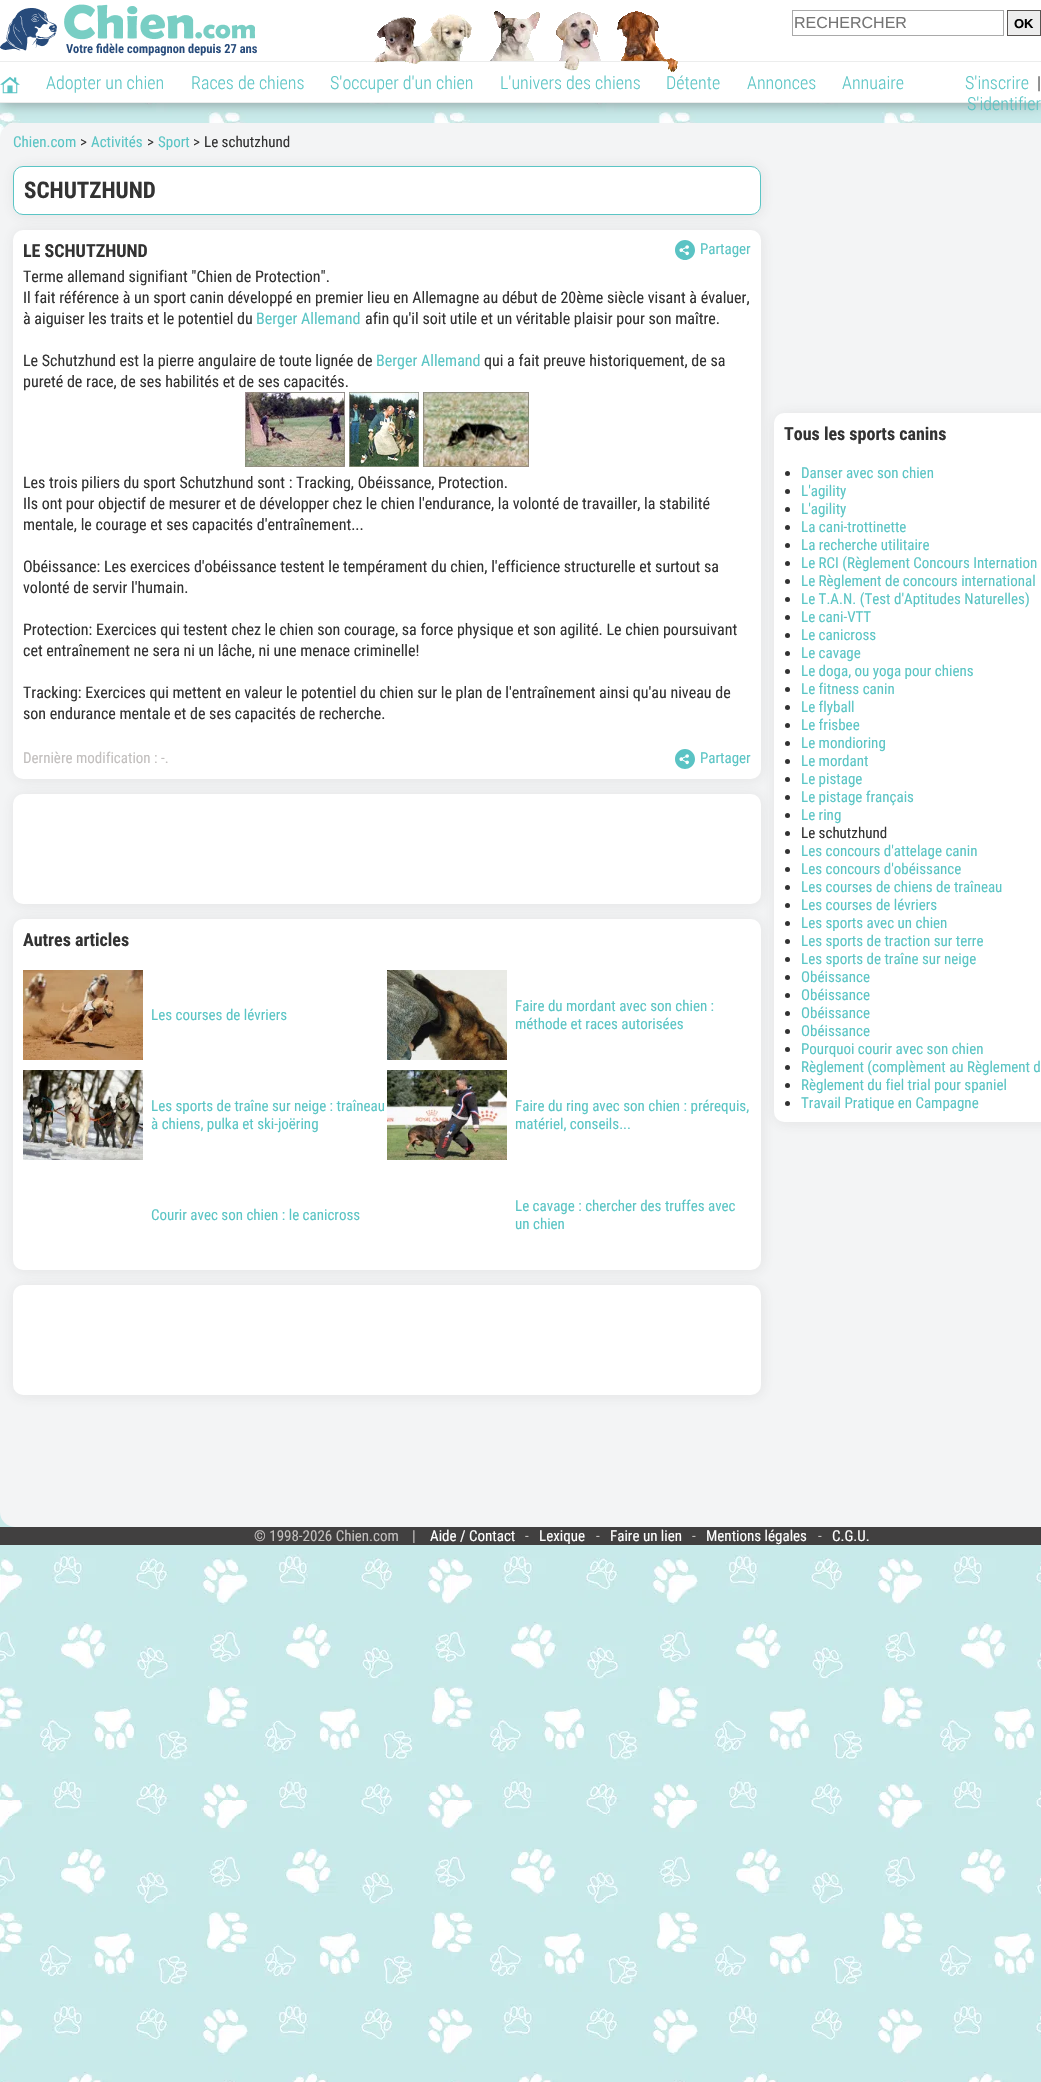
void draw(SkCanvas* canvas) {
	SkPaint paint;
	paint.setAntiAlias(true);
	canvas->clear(0xffffffff);
	canvas->drawImageRect(SkImages::DeferredFromEncodedData(SkData::MakeFromFileName("img1.png")), SkRect::MakeXYWH(0, 103, 1041, 1979), SkSamplingOptions());
	paint.setColor(0x80484848);
	paint.setMaskFilter(SkMaskFilter::MakeBlur(kNormal_SkBlurStyle, 6.5));
	canvas->drawRect(SkRect::MakeXYWH(1, 1, 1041, 103), paint);
	paint.setMaskFilter(nullptr);
	paint.setColor(0xffffffff);
	canvas->drawRect(SkRect::MakeXYWH(0, 0, 1041, 102), paint);
	paint.setColor(0xffeceded);
	canvas->drawRect(SkRect::MakeXYWH(0, 102, 1041, 1), paint);
	canvas->drawImageRect(SkImages::DeferredFromEncodedData(SkData::MakeFromFileName("img2.png")), SkRect::MakeXYWH(0, 4, 257, 52), SkSamplingOptions());
	canvas->drawRect(SkRect::MakeXYWH(0, 61, 1041, 1), paint);
	canvas->drawImageRect(SkImages::DeferredFromEncodedData(SkData::MakeFromFileName("img3.png")), SkRect::MakeXYWH(374, 11, 304, 61), SkSamplingOptions());
	paint.setStroke(true);
	paint.setStrokeWidth(1);
	paint.setColor(0xffa9a9a9);
	canvas->drawRect(SkRect::MakeXYWH(792.5, 10.5, 211, 25), paint);
	SkFont f1(fontMgr->matchFamilyStyle("Liberation Sans", SkFontStyle::Normal()), 16);
	f1.setSubpixel(true);
	paint.setStroke(false);
	paint.setColor(0xff757575);
	canvas->drawString("RECHERCHER", 794, 28, f1, paint);
	paint.setColor(0xffededed);
	canvas->drawRect(SkRect::MakeXYWH(1007.5, 10.5, 33, 25), paint);
	paint.setStroke(true);
	paint.setColor(0xff585452);
	canvas->drawRect(SkRect::MakeXYWH(1007.5, 10.5, 33, 25), paint);
	SkFont f2(fontMgr->matchFamilyStyle("Liberation Sans", SkFontStyle::Bold()), 13);
	f2.setSubpixel(true);
	paint.setStroke(false);
	paint.setColor(0xff000000);
	canvas->drawString("OK", 1014, 28, f2, paint);
	canvas->drawImageRect(SkImages::DeferredFromEncodedData(SkData::MakeFromFileName("img4.png")), SkRect::MakeXYWH(0, 76, 20, 18), SkSamplingOptions());
	SkFont f3(fontMgr->matchFamilyStyle("Roboto", SkFontStyle(300, SkFontStyle::kNormal_Width, SkFontStyle::kUpright_Slant)), 18);
	f3.setSubpixel(true);
	paint.setColor(0xff5bc5c5);
	canvas->drawString("Adopter un chien", 46, 89, f3, paint);
	canvas->drawString("Races de chiens", 191, 89, f3, paint);
	canvas->drawString("S'occuper d'un chien", 330, 89, f3, paint);
	canvas->drawString("L'univers des chiens", 500, 89, f3, paint);
	canvas->drawString("Détente", 666, 89, f3, paint);
	canvas->drawString("Annonces", 747, 89, f3, paint);
	canvas->drawString("Annuaire", 842, 89, f3, paint);
	canvas->drawString("S'inscrire", 965, 89, f3, paint);
	paint.setColor(0xff333333);
	canvas->drawString("|", 1037, 89, f3, paint);
	paint.setColor(0xff5bc5c5);
	canvas->drawString("S'identifier", 967, 110, f3, paint);
	paint.setColor(0xfff3f4f5);
	canvas->drawRoundRect(SkRect::MakeXYWH(0, 123, 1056, 1404), 15, 15, paint);
	paint.setColor(0x1a484848);
	paint.setMaskFilter(SkMaskFilter::MakeBlur(kNormal_SkBlurStyle, 6.5));
	canvas->drawRoundRect(SkRect::MakeXYWH(14, 167, 748, 49), 10, 10, paint);
	paint.setMaskFilter(nullptr);
	SkFont f4(fontMgr->matchFamilyStyle("Roboto Condensed", SkFontStyle::Normal()), 15);
	f4.setSubpixel(true);
	paint.setColor(0xff5bc5c5);
	canvas->drawString("Chien.com", 13, 147, f4, paint);
	paint.setColor(0xff333333);
	canvas->drawString(">", 80, 147, f4, paint);
	paint.setColor(0xff5bc5c5);
	canvas->drawString("Activités", 91, 147, f4, paint);
	paint.setColor(0xff333333);
	canvas->drawString(">", 147, 147, f4, paint);
	paint.setColor(0xff5bc5c5);
	canvas->drawString("Sport", 158, 147, f4, paint);
	paint.setColor(0xff333333);
	canvas->drawString(">", 193, 147, f4, paint);
	canvas->drawString("Le schutzhund", 204, 147, f4, paint);
	paint.setColor(0xffffffff);
	canvas->drawRoundRect(SkRect::MakeXYWH(13.5, 166.5, 747, 48), 9.5, 9.5, paint);
	paint.setStroke(true);
	paint.setColor(0xff5bc5c5);
	canvas->drawRoundRect(SkRect::MakeXYWH(13.5, 166.5, 747, 48), 9.5, 9.5, paint);
	SkFont f5(fontMgr->matchFamilyStyle("Roboto", SkFontStyle::Bold()), 23);
	f5.setSubpixel(true);
	paint.setStroke(false);
	paint.setColor(0xff333333);
	canvas->drawString("SCHUTZHUND", 24, 198, f5, paint);
	paint.setColor(0x1a484848);
	paint.setMaskFilter(SkMaskFilter::MakeBlur(kNormal_SkBlurStyle, 6.5));
	canvas->drawRoundRect(SkRect::MakeXYWH(14, 231, 748, 549), 10, 10, paint);
	paint.setMaskFilter(nullptr);
	paint.setColor(0xffffffff);
	canvas->drawRoundRect(SkRect::MakeXYWH(13, 230, 748, 549), 10, 10, paint);
	canvas->drawImageRect(SkImages::DeferredFromEncodedData(SkData::MakeFromFileName("img5.png")), SkRect::MakeXYWH(675, 240, 20, 20), SkSamplingOptions());
	paint.setColor(0xff5bc5c5);
	canvas->drawString("Partager", 700, 254, f4, paint);
	SkFont f6(fontMgr->matchFamilyStyle("Roboto", SkFontStyle::Bold()), 18);
	f6.setSubpixel(true);
	paint.setColor(0xff333333);
	canvas->drawString("LE SCHUTZHUND", 23, 257, f6, paint);
	SkFont f7(fontMgr->matchFamilyStyle("Roboto Condensed", SkFontStyle::Normal()), 16);
	f7.setSubpixel(true);
	canvas->drawString("Terme allemand signifiant \"Chien de Protection\".", 23, 282, f7, paint);
	canvas->drawString("Il fait référence à un sport canin développé en premier lieu en Allemagne au début de 20ème siècle visant à évaluer,", 23, 303, f7, paint);
	canvas->drawString("à aiguiser les traits et le potentiel du", 23, 324, f7, paint);
	paint.setColor(0xff5bc5c5);
	canvas->drawString("Berger Allemand", 256, 324, f7, paint);
	paint.setColor(0xff333333);
	canvas->drawString("afin qu'il soit utile et un véritable plaisir pour son maître.", 365, 324, f7, paint);
	canvas->drawString("Le Schutzhund est la pierre angulaire de toute lignée de", 23, 366, f7, paint);
	paint.setColor(0xff5bc5c5);
	canvas->drawString("Berger Allemand", 376, 366, f7, paint);
	paint.setColor(0xff333333);
	canvas->drawString("qui a fait preuve historiquement, de sa", 484, 366, f7, paint);
	canvas->drawString("pureté de race, de ses habilités et de ses capacités.", 23, 387, f7, paint);
	canvas->drawImageRect(SkImages::DeferredFromEncodedData(SkData::MakeFromFileName("img6.png")), SkRect::MakeXYWH(245, 392, 100, 75), SkSamplingOptions());
	canvas->drawImageRect(SkImages::DeferredFromEncodedData(SkData::MakeFromFileName("img7.png")), SkRect::MakeXYWH(349, 392, 70, 75), SkSamplingOptions());
	canvas->drawImageRect(SkImages::DeferredFromEncodedData(SkData::MakeFromFileName("img8.png")), SkRect::MakeXYWH(423, 392, 106, 75), SkSamplingOptions());
	canvas->drawString("Les trois piliers du sport Schutzhund sont : Tracking, Obéissance, Protection.", 23, 488, f7, paint);
	canvas->drawString("Ils ont pour objectif de mesurer et de développer chez le chien l'endurance, la volonté de travailler, la stabilité", 23, 509, f7, paint);
	canvas->drawString("mentale, le courage et ses capacités d'entraînement...", 23, 530, f7, paint);
	canvas->drawString("Obéissance: Les exercices d'obéissance testent le tempérament du chien, l'efficience structurelle et surtout sa", 23, 572, f7, paint);
	canvas->drawString("volonté de servir l'humain.", 23, 593, f7, paint);
	canvas->drawString("Protection: Exercices qui testent chez le chien son courage, sa force physique et son agilité. Le chien poursuivant", 23, 635, f7, paint);
	canvas->drawString("cet entraînement ne sera ni un lâche, ni une menace criminelle!", 23, 656, f7, paint);
	canvas->drawString("Tracking: Exercices qui mettent en valeur le potentiel du chien sur le plan de l'entraînement ainsi qu'au niveau de", 23, 698, f7, paint);
	canvas->drawString("son endurance mentale et de ses capacités de recherche.", 23, 719, f7, paint);
	paint.setColor(0xffc2bfbe);
	canvas->drawString("Dernière modification : -.", 23, 763, f4, paint);
	canvas->drawImageRect(SkImages::DeferredFromEncodedData(SkData::MakeFromFileName("img9.png")), SkRect::MakeXYWH(675, 749, 20, 20), SkSamplingOptions());
	paint.setColor(0xff5bc5c5);
	canvas->drawString("Partager", 700, 763, f4, paint);
	paint.setColor(0x1a484848);
	paint.setMaskFilter(SkMaskFilter::MakeBlur(kNormal_SkBlurStyle, 6.5));
	canvas->drawRoundRect(SkRect::MakeXYWH(14, 795, 748, 110), 10, 10, paint);
	paint.setMaskFilter(nullptr);
	paint.setColor(0xffffffff);
	canvas->drawRoundRect(SkRect::MakeXYWH(13, 794, 748, 110), 10, 10, paint);
	paint.setColor(0x1a484848);
	paint.setMaskFilter(SkMaskFilter::MakeBlur(kNormal_SkBlurStyle, 6.5));
	canvas->drawRoundRect(SkRect::MakeXYWH(14, 920, 748, 351), 10, 10, paint);
	paint.setMaskFilter(nullptr);
	paint.setColor(0xffffffff);
	canvas->drawRoundRect(SkRect::MakeXYWH(13, 919, 748, 351), 10, 10, paint);
	paint.setColor(0xff333333);
	canvas->drawString("Autres articles", 23, 946, f6, paint);
	canvas->drawImageRect(SkImages::DeferredFromEncodedData(SkData::MakeFromFileName("img10.png")), SkRect::MakeXYWH(23, 970, 120, 90), SkSamplingOptions());
	paint.setColor(0xff5bc5c5);
	canvas->drawString("Les courses de lévriers", 151, 1020, f4, paint);
	canvas->drawImageRect(SkImages::DeferredFromEncodedData(SkData::MakeFromFileName("img11.png")), SkRect::MakeXYWH(387, 970, 120, 90), SkSamplingOptions());
	canvas->drawString("Faire du mordant avec son chien :", 515, 1011, f4, paint);
	canvas->drawString("méthode et races autorisées", 515, 1029, f4, paint);
	canvas->drawImageRect(SkImages::DeferredFromEncodedData(SkData::MakeFromFileName("img12.png")), SkRect::MakeXYWH(23, 1070, 120, 90), SkSamplingOptions());
	canvas->drawString("Les sports de traîne sur neige : traîneau", 151, 1111, f4, paint);
	canvas->drawString("à chiens, pulka et ski-joëring", 151, 1129, f4, paint);
	canvas->drawImageRect(SkImages::DeferredFromEncodedData(SkData::MakeFromFileName("img13.png")), SkRect::MakeXYWH(387, 1070, 120, 90), SkSamplingOptions());
	canvas->drawString("Faire du ring avec son chien : prérequis,", 515, 1111, f4, paint);
	canvas->drawString("matériel, conseils...", 515, 1129, f4, paint);
	canvas->drawString("Courir avec son chien : le canicross", 151, 1220, f4, paint);
	canvas->drawString("Le cavage : chercher des truffes avec", 515, 1211, f4, paint);
	canvas->drawString("un chien", 515, 1229, f4, paint);
	paint.setColor(0x1a484848);
	paint.setMaskFilter(SkMaskFilter::MakeBlur(kNormal_SkBlurStyle, 6.5));
	canvas->drawRoundRect(SkRect::MakeXYWH(14, 1286, 748, 110), 10, 10, paint);
	paint.setMaskFilter(nullptr);
	paint.setColor(0xffffffff);
	canvas->drawRoundRect(SkRect::MakeXYWH(13, 1285, 748, 110), 10, 10, paint);
	paint.setColor(0x1a484848);
	paint.setMaskFilter(SkMaskFilter::MakeBlur(kNormal_SkBlurStyle, 6.5));
	canvas->drawRoundRect(SkRect::MakeXYWH(775, 414, 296, 709), 10, 10, paint);
	paint.setMaskFilter(nullptr);
	paint.setColor(0xffffffff);
	canvas->drawRoundRect(SkRect::MakeXYWH(774, 413, 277, 709), 10, 10, paint);
	paint.setColor(0xff333333);
	canvas->drawString("Tous les sports canins", 784, 440, f6, paint);
	canvas->drawCircle(787.5, 473.5, 2.5, paint);
	paint.setColor(0xff5bc5c5);
	canvas->drawString("Danser avec son chien", 801, 478, f4, paint);
	paint.setColor(0xff333333);
	canvas->drawCircle(787.5, 491.5, 2.5, paint);
	paint.setColor(0xff5bc5c5);
	canvas->drawString("L'agility", 801, 496, f4, paint);
	paint.setColor(0xff333333);
	canvas->drawCircle(787.5, 509.5, 2.5, paint);
	paint.setColor(0xff5bc5c5);
	canvas->drawString("L'agility", 801, 514, f4, paint);
	paint.setColor(0xff333333);
	canvas->drawCircle(787.5, 527.5, 2.5, paint);
	paint.setColor(0xff5bc5c5);
	canvas->drawString("La cani-trottinette", 801, 532, f4, paint);
	paint.setColor(0xff333333);
	canvas->drawCircle(787.5, 545.5, 2.5, paint);
	paint.setColor(0xff5bc5c5);
	canvas->drawString("La recherche utilitaire", 801, 550, f4, paint);
	paint.setColor(0xff333333);
	canvas->drawCircle(787.5, 563.5, 2.5, paint);
	paint.setColor(0xff5bc5c5);
	canvas->drawString("Le RCI (Règlement Concours Internation", 801, 568, f4, paint);
	paint.setColor(0xff333333);
	canvas->drawCircle(787.5, 581.5, 2.5, paint);
	paint.setColor(0xff5bc5c5);
	canvas->drawString("Le Règlement de concours international", 801, 586, f4, paint);
	paint.setColor(0xff333333);
	canvas->drawCircle(787.5, 599.5, 2.5, paint);
	paint.setColor(0xff5bc5c5);
	canvas->drawString("Le T.A.N. (Test d'Aptitudes Naturelles)", 801, 604, f4, paint);
	paint.setColor(0xff333333);
	canvas->drawCircle(787.5, 617.5, 2.5, paint);
	paint.setColor(0xff5bc5c5);
	canvas->drawString("Le cani-VTT", 801, 622, f4, paint);
	paint.setColor(0xff333333);
	canvas->drawCircle(787.5, 635.5, 2.5, paint);
	paint.setColor(0xff5bc5c5);
	canvas->drawString("Le canicross", 801, 640, f4, paint);
	paint.setColor(0xff333333);
	canvas->drawCircle(787.5, 653.5, 2.5, paint);
	paint.setColor(0xff5bc5c5);
	canvas->drawString("Le cavage", 801, 658, f4, paint);
	paint.setColor(0xff333333);
	canvas->drawCircle(787.5, 671.5, 2.5, paint);
	paint.setColor(0xff5bc5c5);
	canvas->drawString("Le doga, ou yoga pour chiens", 801, 676, f4, paint);
	paint.setColor(0xff333333);
	canvas->drawCircle(787.5, 689.5, 2.5, paint);
	paint.setColor(0xff5bc5c5);
	canvas->drawString("Le fitness canin", 801, 694, f4, paint);
	paint.setColor(0xff333333);
	canvas->drawCircle(787.5, 707.5, 2.5, paint);
	paint.setColor(0xff5bc5c5);
	canvas->drawString("Le flyball", 801, 712, f4, paint);
	paint.setColor(0xff333333);
	canvas->drawCircle(787.5, 725.5, 2.5, paint);
	paint.setColor(0xff5bc5c5);
	canvas->drawString("Le frisbee", 801, 730, f4, paint);
	paint.setColor(0xff333333);
	canvas->drawCircle(787.5, 743.5, 2.5, paint);
	paint.setColor(0xff5bc5c5);
	canvas->drawString("Le mondioring", 801, 748, f4, paint);
	paint.setColor(0xff333333);
	canvas->drawCircle(787.5, 761.5, 2.5, paint);
	paint.setColor(0xff5bc5c5);
	canvas->drawString("Le mordant", 801, 766, f4, paint);
	paint.setColor(0xff333333);
	canvas->drawCircle(787.5, 779.5, 2.5, paint);
	paint.setColor(0xff5bc5c5);
	canvas->drawString("Le pistage", 801, 784, f4, paint);
	paint.setColor(0xff333333);
	canvas->drawCircle(787.5, 797.5, 2.5, paint);
	paint.setColor(0xff5bc5c5);
	canvas->drawString("Le pistage français", 801, 802, f4, paint);
	paint.setColor(0xff333333);
	canvas->drawCircle(787.5, 815.5, 2.5, paint);
	paint.setColor(0xff5bc5c5);
	canvas->drawString("Le ring", 801, 820, f4, paint);
	paint.setColor(0xff333333);
	canvas->drawCircle(787.5, 833.5, 2.5, paint);
	canvas->drawString("Le schutzhund", 801, 838, f4, paint);
	canvas->drawCircle(787.5, 851.5, 2.5, paint);
	paint.setColor(0xff5bc5c5);
	canvas->drawString("Les concours d'attelage canin", 801, 856, f4, paint);
	paint.setColor(0xff333333);
	canvas->drawCircle(787.5, 869.5, 2.5, paint);
	paint.setColor(0xff5bc5c5);
	canvas->drawString("Les concours d'obéissance", 801, 874, f4, paint);
	paint.setColor(0xff333333);
	canvas->drawCircle(787.5, 887.5, 2.5, paint);
	paint.setColor(0xff5bc5c5);
	canvas->drawString("Les courses de chiens de traîneau", 801, 892, f4, paint);
	paint.setColor(0xff333333);
	canvas->drawCircle(787.5, 905.5, 2.5, paint);
	paint.setColor(0xff5bc5c5);
	canvas->drawString("Les courses de lévriers", 801, 910, f4, paint);
	paint.setColor(0xff333333);
	canvas->drawCircle(787.5, 923.5, 2.5, paint);
	paint.setColor(0xff5bc5c5);
	canvas->drawString("Les sports avec un chien", 801, 928, f4, paint);
	paint.setColor(0xff333333);
	canvas->drawCircle(787.5, 941.5, 2.5, paint);
	paint.setColor(0xff5bc5c5);
	canvas->drawString("Les sports de traction sur terre", 801, 946, f4, paint);
	paint.setColor(0xff333333);
	canvas->drawCircle(787.5, 959.5, 2.5, paint);
	paint.setColor(0xff5bc5c5);
	canvas->drawString("Les sports de traîne sur neige", 801, 964, f4, paint);
	paint.setColor(0xff333333);
	canvas->drawCircle(787.5, 977.5, 2.5, paint);
	paint.setColor(0xff5bc5c5);
	canvas->drawString("Obéissance", 801, 982, f4, paint);
	paint.setColor(0xff333333);
	canvas->drawCircle(787.5, 995.5, 2.5, paint);
	paint.setColor(0xff5bc5c5);
	canvas->drawString("Obéissance", 801, 1000, f4, paint);
	paint.setColor(0xff333333);
	canvas->drawCircle(787.5, 1013.5, 2.5, paint);
	paint.setColor(0xff5bc5c5);
	canvas->drawString("Obéissance", 801, 1018, f4, paint);
	paint.setColor(0xff333333);
	canvas->drawCircle(787.5, 1031.5, 2.5, paint);
	paint.setColor(0xff5bc5c5);
	canvas->drawString("Obéissance", 801, 1036, f4, paint);
	paint.setColor(0xff333333);
	canvas->drawCircle(787.5, 1049.5, 2.5, paint);
	paint.setColor(0xff5bc5c5);
	canvas->drawString("Pourquoi courir avec son chien", 801, 1054, f4, paint);
	paint.setColor(0xff333333);
	canvas->drawCircle(787.5, 1067.5, 2.5, paint);
	paint.setColor(0xff5bc5c5);
	canvas->drawString("Règlement (complèment au Règlement d", 801, 1072, f4, paint);
	paint.setColor(0xff333333);
	canvas->drawCircle(787.5, 1085.5, 2.5, paint);
	paint.setColor(0xff5bc5c5);
	canvas->drawString("Règlement du fiel trial pour spaniel", 801, 1090, f4, paint);
	paint.setColor(0xff333333);
	canvas->drawCircle(787.5, 1103.5, 2.5, paint);
	paint.setColor(0xff5bc5c5);
	canvas->drawString("Travail Pratique en Campagne", 801, 1108, f4, paint);
	paint.setColor(0xff414040);
	canvas->drawRect(SkRect::MakeXYWH(0, 1527, 1041, 18), paint);
	paint.setColor(0xffc2bfbe);
	canvas->drawString("© 1998-2026 Chien.com", 254, 1541, f4, paint);
	canvas->drawString("|", 412, 1541, f4, paint);
	paint.setColor(0xffffffff);
	canvas->drawString("Aide / Contact", 430, 1541, f4, paint);
	paint.setColor(0xffc2bfbe);
	canvas->drawString("-", 525, 1541, f4, paint);
	paint.setColor(0xffffffff);
	canvas->drawString("Lexique", 539, 1541, f4, paint);
	paint.setColor(0xffc2bfbe);
	canvas->drawString("-", 596, 1541, f4, paint);
	paint.setColor(0xffffffff);
	canvas->drawString("Faire un lien", 610, 1541, f4, paint);
	paint.setColor(0xffc2bfbe);
	canvas->drawString("-", 692, 1541, f4, paint);
	paint.setColor(0xffffffff);
	canvas->drawString("Mentions légales", 706, 1541, f4, paint);
	paint.setColor(0xffc2bfbe);
	canvas->drawString("-", 818, 1541, f4, paint);
	paint.setColor(0xffffffff);
	canvas->drawString("C.G.U.", 832, 1541, f4, paint);
}
